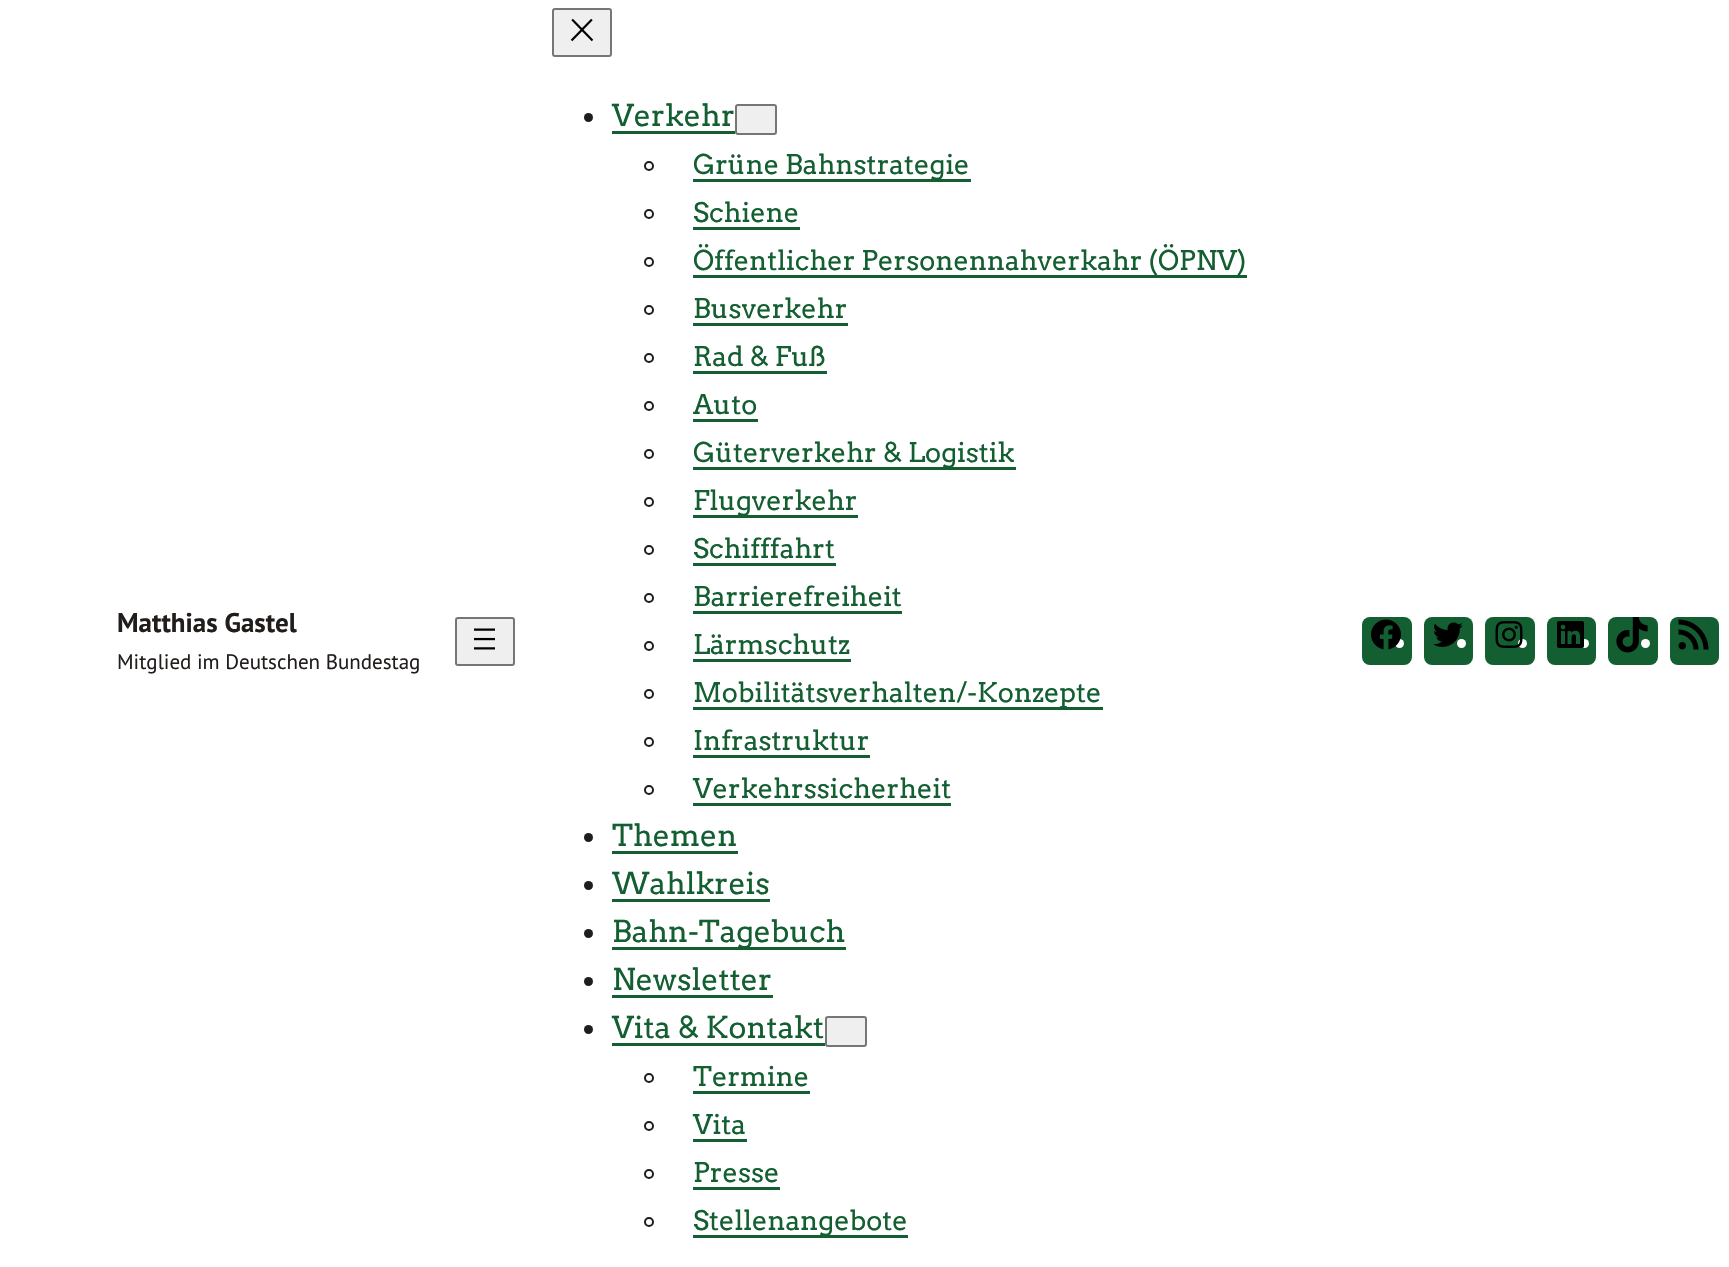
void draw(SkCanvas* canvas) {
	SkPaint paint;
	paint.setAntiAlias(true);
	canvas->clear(0xffffffff);
	SkFont f1(fontMgr->matchFamilyStyle("PT Sans", SkFontStyle::Bold()), 27);
	f1.setSubpixel(true);
	paint.setColor(0xff201d1b);
	canvas->drawString("Matthias Gastel", 117, 632, f1, paint);
	SkFont f2(fontMgr->matchFamilyStyle("PT Sans", SkFontStyle::Normal()), 21);
	f2.setSubpixel(true);
	canvas->drawString("Mitglied im Deutschen Bundestag", 117, 669, f2, paint);
	paint.setColor(0xffefefef);
	canvas->drawRoundRect(SkRect::MakeXYWH(456, 618, 58, 47), 2, 2, paint);
	paint.setStroke(true);
	paint.setStrokeWidth(2);
	paint.setColor(0xff767676);
	canvas->drawRoundRect(SkRect::MakeXYWH(456, 618, 58, 47), 2, 2, paint);
	canvas->drawImageRect(SkImages::DeferredFromEncodedData(SkData::MakeFromFileName("img1.png")), SkRect::MakeXYWH(474, 628, 21, 22), SkSamplingOptions());
	paint.setStroke(false);
	paint.setColor(0xffefefef);
	canvas->drawRoundRect(SkRect::MakeXYWH(553, 9, 58, 47), 2, 2, paint);
	paint.setStroke(true);
	paint.setColor(0xff767676);
	canvas->drawRoundRect(SkRect::MakeXYWH(553, 9, 58, 47), 2, 2, paint);
	canvas->drawImageRect(SkImages::DeferredFromEncodedData(SkData::MakeFromFileName("img2.png")), SkRect::MakeXYWH(570, 18, 24, 24), SkSamplingOptions());
	paint.setStroke(false);
	paint.setColor(0xff201d1b);
	canvas->drawCircle(588.5, 117.5, 4.5, paint);
	SkFont f3(fontMgr->matchFamilyStyle("Arvo", SkFontStyle::Normal()), 30);
	f3.setSubpixel(true);
	paint.setColor(0xff145f32);
	canvas->drawString("Verkehr", 612, 126, f3, paint);
	canvas->drawRect(SkRect::MakeXYWH(612, 131, 123, 3), paint);
	paint.setColor(0xffefefef);
	canvas->drawRoundRect(SkRect::MakeXYWH(736, 105, 40, 29), 2, 2, paint);
	paint.setStroke(true);
	paint.setColor(0xff767676);
	canvas->drawRoundRect(SkRect::MakeXYWH(736, 105, 40, 29), 2, 2, paint);
	paint.setColor(0xff201d1b);
	canvas->drawCircle(649, 166, 4, paint);
	paint.setStroke(false);
	paint.setColor(0xff145f32);
	canvas->drawRect(SkRect::MakeXYWH(693, 179, 278, 3), paint);
	SkFont f4(fontMgr->matchFamilyStyle("Arvo", SkFontStyle::Normal()), 27);
	f4.setSubpixel(true);
	canvas->drawString("Grüne Bahnstrategie", 693, 174, f4, paint);
	paint.setStroke(true);
	paint.setColor(0xff201d1b);
	canvas->drawCircle(649, 214, 4, paint);
	paint.setStroke(false);
	paint.setColor(0xff145f32);
	canvas->drawString("Schiene", 693, 222, f4, paint);
	canvas->drawRect(SkRect::MakeXYWH(693, 227, 107, 3), paint);
	paint.setStroke(true);
	paint.setColor(0xff201d1b);
	canvas->drawCircle(649, 262, 4, paint);
	paint.setStroke(false);
	paint.setColor(0xff145f32);
	canvas->drawRect(SkRect::MakeXYWH(693, 275, 554, 3), paint);
	canvas->drawString("Öffentlicher Personennahverkahr (ÖPNV)", 693, 270, f4, paint);
	paint.setStroke(true);
	paint.setColor(0xff201d1b);
	canvas->drawCircle(649, 310, 4, paint);
	paint.setStroke(false);
	paint.setColor(0xff145f32);
	canvas->drawString("Busverkehr", 693, 318, f4, paint);
	canvas->drawRect(SkRect::MakeXYWH(693, 323, 155, 3), paint);
	paint.setStroke(true);
	paint.setColor(0xff201d1b);
	canvas->drawCircle(649, 358, 4, paint);
	paint.setStroke(false);
	paint.setColor(0xff145f32);
	canvas->drawString("Rad & Fuß", 693, 366, f4, paint);
	canvas->drawRect(SkRect::MakeXYWH(693, 371, 134, 3), paint);
	paint.setStroke(true);
	paint.setColor(0xff201d1b);
	canvas->drawCircle(649, 406, 4, paint);
	paint.setStroke(false);
	paint.setColor(0xff145f32);
	canvas->drawString("Auto", 693, 414, f4, paint);
	canvas->drawRect(SkRect::MakeXYWH(693, 419, 65, 3), paint);
	paint.setStroke(true);
	paint.setColor(0xff201d1b);
	canvas->drawCircle(649, 454, 4, paint);
	paint.setStroke(false);
	paint.setColor(0xff145f32);
	canvas->drawRect(SkRect::MakeXYWH(693, 467, 323, 3), paint);
	canvas->drawString("Güterverkehr & Logistik", 693, 462, f4, paint);
	paint.setStroke(true);
	paint.setColor(0xff201d1b);
	canvas->drawCircle(649, 502, 4, paint);
	paint.setStroke(false);
	paint.setColor(0xff145f32);
	canvas->drawRect(SkRect::MakeXYWH(693, 515, 165, 3), paint);
	canvas->drawString("Flugverkehr", 693, 510, f4, paint);
	paint.setStroke(true);
	paint.setColor(0xff201d1b);
	canvas->drawCircle(649, 550, 4, paint);
	paint.setStroke(false);
	paint.setColor(0xff145f32);
	canvas->drawString("Schifffahrt", 693, 558, f4, paint);
	canvas->drawRect(SkRect::MakeXYWH(693, 563, 143, 3), paint);
	paint.setStroke(true);
	paint.setColor(0xff201d1b);
	canvas->drawCircle(649, 598, 4, paint);
	paint.setStroke(false);
	paint.setColor(0xff145f32);
	canvas->drawString("Barrierefreiheit", 693, 606, f4, paint);
	canvas->drawRect(SkRect::MakeXYWH(693, 611, 209, 3), paint);
	paint.setStroke(true);
	paint.setColor(0xff201d1b);
	canvas->drawCircle(649, 646, 4, paint);
	paint.setStroke(false);
	paint.setColor(0xff145f32);
	canvas->drawString("Lärmschutz", 693, 654, f4, paint);
	canvas->drawRect(SkRect::MakeXYWH(693, 659, 158, 3), paint);
	paint.setStroke(true);
	paint.setColor(0xff201d1b);
	canvas->drawCircle(649, 694, 4, paint);
	paint.setStroke(false);
	paint.setColor(0xff145f32);
	canvas->drawRect(SkRect::MakeXYWH(693, 707, 410, 3), paint);
	canvas->drawString("Mobilitätsverhalten/-Konzepte", 693, 702, f4, paint);
	paint.setStroke(true);
	paint.setColor(0xff201d1b);
	canvas->drawCircle(649, 742, 4, paint);
	paint.setStroke(false);
	paint.setColor(0xff145f32);
	canvas->drawString("Infrastruktur", 693, 750, f4, paint);
	canvas->drawRect(SkRect::MakeXYWH(693, 755, 177, 3), paint);
	paint.setStroke(true);
	paint.setColor(0xff201d1b);
	canvas->drawCircle(649, 790, 4, paint);
	paint.setStroke(false);
	paint.setColor(0xff145f32);
	canvas->drawString("Verkehrssicherheit", 693, 798, f4, paint);
	canvas->drawRect(SkRect::MakeXYWH(693, 803, 258, 3), paint);
	paint.setColor(0xff201d1b);
	canvas->drawCircle(588.5, 837.5, 4.5, paint);
	paint.setColor(0xff145f32);
	canvas->drawString("Themen", 612, 846, f3, paint);
	canvas->drawRect(SkRect::MakeXYWH(612, 851, 126, 3), paint);
	paint.setColor(0xff201d1b);
	canvas->drawCircle(588.5, 885.5, 4.5, paint);
	paint.setColor(0xff145f32);
	canvas->drawString("Wahlkreis", 612, 894, f3, paint);
	canvas->drawRect(SkRect::MakeXYWH(612, 899, 158, 3), paint);
	paint.setColor(0xff201d1b);
	canvas->drawCircle(588.5, 933.5, 4.5, paint);
	paint.setColor(0xff145f32);
	canvas->drawRect(SkRect::MakeXYWH(612, 947, 234, 3), paint);
	canvas->drawString("Bahn-Tagebuch", 612, 942, f3, paint);
	paint.setColor(0xff201d1b);
	canvas->drawCircle(588.5, 981.5, 4.5, paint);
	paint.setColor(0xff145f32);
	canvas->drawString("Newsletter", 612, 990, f3, paint);
	canvas->drawRect(SkRect::MakeXYWH(612, 995, 161, 3), paint);
	paint.setColor(0xff201d1b);
	canvas->drawCircle(588.5, 1029.5, 4.5, paint);
	paint.setColor(0xff145f32);
	canvas->drawString("Vita & Kontakt", 612, 1038, f3, paint);
	canvas->drawRect(SkRect::MakeXYWH(612, 1043, 213, 3), paint);
	paint.setColor(0xffefefef);
	canvas->drawRoundRect(SkRect::MakeXYWH(826, 1017, 40, 29), 2, 2, paint);
	paint.setStroke(true);
	paint.setColor(0xff767676);
	canvas->drawRoundRect(SkRect::MakeXYWH(826, 1017, 40, 29), 2, 2, paint);
	paint.setColor(0xff201d1b);
	canvas->drawCircle(649, 1078, 4, paint);
	paint.setStroke(false);
	paint.setColor(0xff145f32);
	canvas->drawString("Termine", 693, 1086, f4, paint);
	canvas->drawRect(SkRect::MakeXYWH(693, 1091, 117, 3), paint);
	paint.setStroke(true);
	paint.setColor(0xff201d1b);
	canvas->drawCircle(649, 1126, 4, paint);
	paint.setStroke(false);
	paint.setColor(0xff145f32);
	canvas->drawString("Vita", 693, 1134, f4, paint);
	canvas->drawRect(SkRect::MakeXYWH(693, 1139, 54, 3), paint);
	paint.setStroke(true);
	paint.setColor(0xff201d1b);
	canvas->drawCircle(649, 1174, 4, paint);
	paint.setStroke(false);
	paint.setColor(0xff145f32);
	canvas->drawString("Presse", 693, 1182, f4, paint);
	canvas->drawRect(SkRect::MakeXYWH(693, 1187, 87, 3), paint);
	paint.setStroke(true);
	paint.setColor(0xff201d1b);
	canvas->drawCircle(649, 1222, 4, paint);
	paint.setStroke(false);
	paint.setColor(0xff145f32);
	canvas->drawRect(SkRect::MakeXYWH(693, 1235, 215, 3), paint);
	canvas->drawString("Stellenangebote", 693, 1230, f4, paint);
	canvas->drawRoundRect(SkRect::MakeXYWH(1362, 617, 50, 48), 8, 8, paint);
	paint.setColor(0xffffffff);
	canvas->drawCircle(1399.5, 643.5, 4.5, paint);
	canvas->drawImageRect(SkImages::DeferredFromEncodedData(SkData::MakeFromFileName("img3.png")), SkRect::MakeXYWH(1371, 619, 30, 31), SkSamplingOptions());
	paint.setColor(0xff145f32);
	canvas->drawRoundRect(SkRect::MakeXYWH(1424, 617, 49, 48), 8, 8, paint);
	paint.setColor(0xffffffff);
	canvas->drawCircle(1461.5, 643.5, 4.5, paint);
	canvas->drawImageRect(SkImages::DeferredFromEncodedData(SkData::MakeFromFileName("img4.png")), SkRect::MakeXYWH(1433, 622, 30, 25), SkSamplingOptions());
	paint.setColor(0xff145f32);
	canvas->drawRoundRect(SkRect::MakeXYWH(1485, 617, 50, 48), 8, 8, paint);
	paint.setColor(0xffffffff);
	canvas->drawCircle(1522.5, 643.5, 4.5, paint);
	canvas->drawImageRect(SkImages::DeferredFromEncodedData(SkData::MakeFromFileName("img5.png")), SkRect::MakeXYWH(1495, 621, 28, 27), SkSamplingOptions());
	paint.setColor(0xff145f32);
	canvas->drawRoundRect(SkRect::MakeXYWH(1547, 617, 49, 48), 8, 8, paint);
	paint.setColor(0xffffffff);
	canvas->drawCircle(1584.5, 643.5, 4.5, paint);
	canvas->drawImageRect(SkImages::DeferredFromEncodedData(SkData::MakeFromFileName("img6.png")), SkRect::MakeXYWH(1557, 621, 27, 27), SkSamplingOptions());
	paint.setColor(0xff145f32);
	canvas->drawRoundRect(SkRect::MakeXYWH(1608, 617, 50, 48), 8, 8, paint);
	paint.setColor(0xffffffff);
	canvas->drawCircle(1645.5, 643.5, 4.5, paint);
	canvas->drawImageRect(SkImages::DeferredFromEncodedData(SkData::MakeFromFileName("img7.png")), SkRect::MakeXYWH(1616, 617, 32, 36), SkSamplingOptions());
	paint.setColor(0xff145f32);
	canvas->drawRoundRect(SkRect::MakeXYWH(1670, 617, 49, 48), 8, 8, paint);
	canvas->drawImageRect(SkImages::DeferredFromEncodedData(SkData::MakeFromFileName("img8.png")), SkRect::MakeXYWH(1678, 619, 31, 31), SkSamplingOptions());
}
